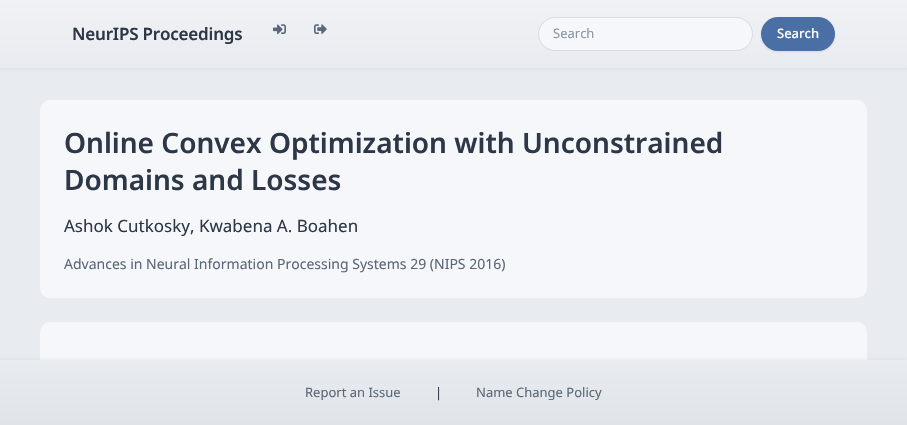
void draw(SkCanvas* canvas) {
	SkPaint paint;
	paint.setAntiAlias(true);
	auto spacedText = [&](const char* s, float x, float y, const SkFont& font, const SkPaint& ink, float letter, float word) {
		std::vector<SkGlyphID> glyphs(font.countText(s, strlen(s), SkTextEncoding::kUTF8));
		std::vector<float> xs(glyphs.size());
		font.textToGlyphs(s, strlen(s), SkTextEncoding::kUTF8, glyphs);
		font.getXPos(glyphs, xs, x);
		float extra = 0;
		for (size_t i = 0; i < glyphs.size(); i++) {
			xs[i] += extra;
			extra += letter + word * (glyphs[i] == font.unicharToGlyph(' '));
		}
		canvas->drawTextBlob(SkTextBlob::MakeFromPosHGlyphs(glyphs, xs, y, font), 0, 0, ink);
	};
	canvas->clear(0xffe8ebf0);
	paint.setColor(0x0f000000);
	paint.setMaskFilter(SkMaskFilter::MakeBlur(kNormal_SkBlurStyle, 1.5));
	canvas->drawRect(SkRect::MakeXYWH(0, 1, 907, 68), paint);
	paint.setMaskFilter(nullptr);
	{
		const SkColor colors[] = {0xfff0f2f5, 0xffe8ebf0};
		const float stops[] = {0, 1};
		const SkPoint ends[] = {{454, 0}, {454, 68}};
		paint.setShader(SkGradientShader::MakeLinear(ends, colors, stops, 2, SkTileMode::kClamp));
		paint.setAlpha(255);
	}
	canvas->drawRect(SkRect::MakeXYWH(0, 0, 907, 68), paint);
	SkFont f1(fontMgr->matchFamilyStyle("Noto Sans", SkFontStyle(600, SkFontStyle::kNormal_Width, SkFontStyle::kUpright_Slant)), 17);
	f1.setSubpixel(true);
	paint.setShader(nullptr);
	paint.setColor(0xff2d3748);
	spacedText("NeurIPS Proceedings", 72, 40, f1, paint, -0.2, 0);
	canvas->drawImageRect(SkImages::DeferredFromEncodedData(SkData::MakeFromFileName("img1.png")), SkRect::MakeXYWH(273, 24, 13, 11), SkSamplingOptions());
	canvas->drawImageRect(SkImages::DeferredFromEncodedData(SkData::MakeFromFileName("img2.png")), SkRect::MakeXYWH(314, 24, 13, 10), SkSamplingOptions());
	paint.setColor(0xfff5f7fa);
	canvas->drawRoundRect(SkRect::MakeXYWH(539, 18, 213, 32), 16, 16, paint);
	paint.setStroke(true);
	paint.setStrokeWidth(1);
	paint.setColor(0x14000000);
	canvas->drawRoundRect(SkRect::MakeXYWH(538.5, 17.5, 214, 33), 16.5, 16.5, paint);
	SkFont f2(fontMgr->matchFamilyStyle("Noto Sans", SkFontStyle::Normal()), 13);
	f2.setSubpixel(true);
	paint.setStroke(false);
	paint.setColor(0xff8896a6);
	canvas->drawString("Search", 553, 38, f2, paint);
	paint.setColor(0x14000000);
	paint.setMaskFilter(SkMaskFilter::MakeBlur(kNormal_SkBlurStyle, 1));
	canvas->drawRoundRect(SkRect::MakeXYWH(761, 18, 74, 34), 17, 17, paint);
	paint.setMaskFilter(nullptr);
	paint.setColor(0xff4a6fa5);
	canvas->drawRoundRect(SkRect::MakeXYWH(761, 17, 74, 34), 17, 17, paint);
	SkFont f3(fontMgr->matchFamilyStyle("Noto Sans", SkFontStyle(500, SkFontStyle::kNormal_Width, SkFontStyle::kUpright_Slant)), 13);
	f3.setSubpixel(true);
	paint.setColor(0xffffffff);
	canvas->drawString("Search", 777, 38, f3, paint);
	paint.setColor(0xfff5f7fa);
	canvas->drawRoundRect(SkRect::MakeXYWH(40, 100, 827, 198), 10, 10, paint);
	SkFont f4(fontMgr->matchFamilyStyle("Noto Sans", SkFontStyle(600, SkFontStyle::kNormal_Width, SkFontStyle::kUpright_Slant)), 28);
	f4.setSubpixel(true);
	paint.setColor(0xff2d3748);
	canvas->drawString("Online Convex Optimization with Unconstrained", 64, 153, f4, paint);
	canvas->drawString("Domains and Losses", 64, 190, f4, paint);
	SkFont f5(fontMgr->matchFamilyStyle("Noto Sans", SkFontStyle::Normal()), 17);
	f5.setSubpixel(true);
	canvas->drawString("Ashok Cutkosky, Kwabena A. Boahen", 64, 232, f5, paint);
	SkFont f6(fontMgr->matchFamilyStyle("Noto Sans", SkFontStyle::Normal()), 14);
	f6.setSubpixel(true);
	paint.setColor(0xff5a6778);
	canvas->drawString("Advances in Neural Information Processing Systems 29 (NIPS 2016)", 64, 269, f6, paint);
	paint.setColor(0xfff5f7fa);
	canvas->drawRoundRect(SkRect::MakeXYWH(40, 322, 827, 85), 10, 10, paint);
	paint.setColor(0x0a000000);
	paint.setMaskFilter(SkMaskFilter::MakeBlur(kNormal_SkBlurStyle, 1.5));
	canvas->drawRect(SkRect::MakeXYWH(0, 359, 907, 65), paint);
	paint.setMaskFilter(nullptr);
	{
		const SkColor colors[] = {0xffe0e3e8, 0xffe8ebf0};
		const float stops[] = {0, 1};
		const SkPoint ends[] = {{454, 425}, {454, 360}};
		paint.setShader(SkGradientShader::MakeLinear(ends, colors, stops, 2, SkTileMode::kClamp));
		paint.setAlpha(255);
	}
	canvas->drawRect(SkRect::MakeXYWH(0, 360, 907, 65), paint);
	paint.setShader(nullptr);
	paint.setColor(0xff5a6778);
	canvas->drawString("Report an Issue", 305, 397, f2, paint);
	paint.setColor(0xff2d3748);
	canvas->drawString("|", 435, 397, f2, paint);
	paint.setColor(0xff5a6778);
	canvas->drawString("Name Change Policy", 476, 397, f2, paint);
}
